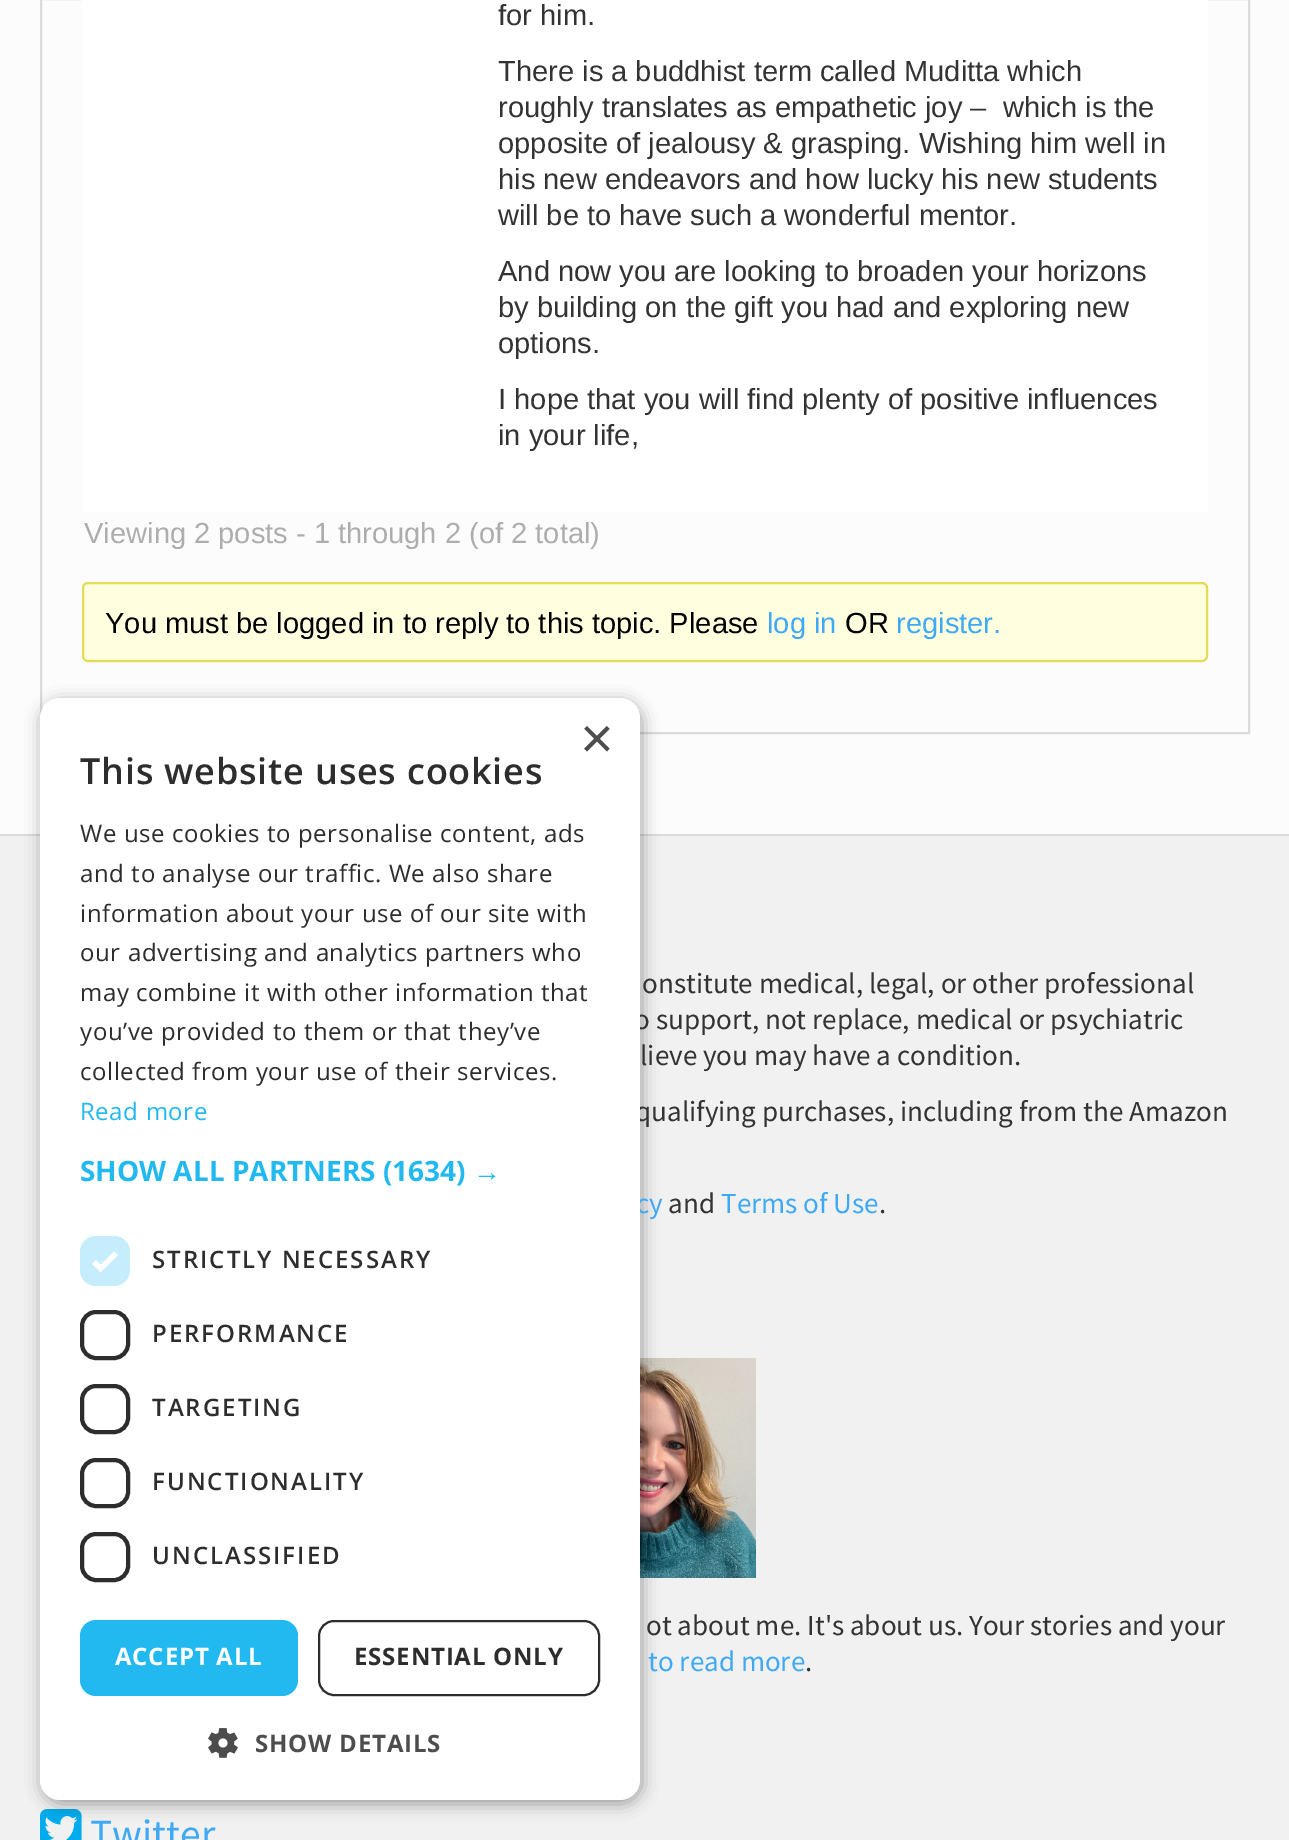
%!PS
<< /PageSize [1289 1840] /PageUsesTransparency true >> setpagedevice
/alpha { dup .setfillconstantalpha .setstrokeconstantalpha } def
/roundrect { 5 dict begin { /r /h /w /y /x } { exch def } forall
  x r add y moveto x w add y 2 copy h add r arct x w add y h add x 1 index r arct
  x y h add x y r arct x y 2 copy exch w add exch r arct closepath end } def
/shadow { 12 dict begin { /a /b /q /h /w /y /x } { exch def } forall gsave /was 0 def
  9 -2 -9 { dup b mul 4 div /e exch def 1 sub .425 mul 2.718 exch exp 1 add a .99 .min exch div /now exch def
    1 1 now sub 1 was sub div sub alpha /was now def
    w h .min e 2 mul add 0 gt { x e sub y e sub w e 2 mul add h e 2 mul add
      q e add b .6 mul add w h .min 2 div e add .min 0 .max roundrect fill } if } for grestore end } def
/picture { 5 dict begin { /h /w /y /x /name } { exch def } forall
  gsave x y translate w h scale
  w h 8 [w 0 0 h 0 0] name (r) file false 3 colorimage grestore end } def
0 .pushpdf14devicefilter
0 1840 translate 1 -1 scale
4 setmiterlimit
0.988 setgray
0 0 1289 1840 rectfill
0.859 setgray
2 setlinewidth
41 -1 1208 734 rectstroke
1 setgray
82 0 1126 512 rectfill
/LiberationSans-Regular [29.1 0 0 -29.1 0 0] selectfont
0.2 setgray
498 25 moveto (for him.) show
498 81 moveto (There is a buddhist term called Muditta which) show
498 117 moveto (roughly translates as empathetic joy –  which is the) show
498 153 moveto (opposite of jealousy & grasping. Wishing him well in) show
498 189 moveto (his new endeavors and how lucky his new students) show
498 225 moveto (will be to have such a wonderful mentor.) show
498 281 moveto (And now you are looking to broaden your horizons) show
498 317 moveto (by building on the gift you had and exploring new) show
498 353 moveto (options.) show
498 409 moveto (I hope that you will find plenty of positive influences) show
498 445 moveto (in your life,) show
0.678 setgray
84 543 moveto (Viewing 2 posts - 1 through 2 \(of 2 total\)) show
1 1 0.878 setrgbcolor
83 583 1124 78 5 roundrect gsave fill grestore
0.902 0.859 0.333 setrgbcolor
stroke
0 setgray
105 633 moveto (You must be logged in to reply to this topic. Please) show
0.247 0.663 0.961 setrgbcolor
767 633 moveto (log in) show
0 setgray
845 633 moveto (OR) show
0.247 0.663 0.961 setrgbcolor
896 633 moveto (register.) show
0.945 setgray
0 836 1289 1004 rectfill
0.859 setgray
0 834 1289 2 rectfill
(img2.rgb) 640 1358 116 220 picture
(img3.rgb) 40 1809 42 31 picture
0 setgray
42 702 600 1102 20 8 0.35 shadow
/SourceSansPro-Regular [29.1 0 0 -29.1 0 0] selectfont
0.2 setgray
634 1029 moveto (o support, not replace, medical or psychiatric) show
635 1121 moveto (qualifying purchases, including from the Amazon) show
0.247 0.663 0.961 setrgbcolor
636 1213 moveto (cy) show
1 setgray
40 698 600 1102 20 roundrect fill
/LiberationSans-Regular [58 0 0 -58 0 0] selectfont
0.302 setgray
580 758 moveto (×) show
/OpenSans-SemiBold [36 0 0 -36 0 0] selectfont
0.176 setgray
80 784 moveto 0.8 0 (This website uses cookies) ashow
/OpenSans-Regular [24 0 0 -24 0 0] selectfont
80 842 moveto 0.6 0 (We use cookies to personalise content, ads) ashow
80 882 moveto 0.6 0 (and to analyse our traffic. We also share) ashow
80 922 moveto 0.6 0 (information about your use of our site with) ashow
80 961 moveto 0.6 0 (our advertising and analytics partners who) ashow
80 1001 moveto 0.6 0 (may combine it with other information that) ashow
80 1040 moveto 0.6 0 (you’ve provided to them or that they’ve) ashow
80 1080 moveto 0.6 0 (collected from your use of their services.) ashow
0.133 0.722 0.941 setrgbcolor
80 1120 moveto 0.6 0 (Read more) ashow
/OpenSans-Bold [28 0 0 -28 0 0] selectfont
80 1181 moveto (SHOW ALL PARTNERS \(1634\)) show
/LiberationSans-Bold [28 0 0 -28 0 0] selectfont
473 1181 moveto (→) show
0.776 0.929 0.984 setrgbcolor
80 1236 50 50 16 roundrect fill
1 setgray
5.2 setlinewidth
newpath 94 1262 moveto 100.5 1268.5 lineto 116 1253.5 lineto stroke
/OpenSans-SemiBold [24 0 0 -24 0 0] selectfont
0.176 setgray
152 1268 moveto 2 0 (STRICTLY NECESSARY) ashow
4 setlinewidth
82 1312 46 46 14 roundrect stroke
152 1342 moveto 2 0 (PERFORMANCE) ashow
82 1386 46 46 14 roundrect stroke
152 1416 moveto 2 0 (TARGETING) ashow
82 1460 46 46 14 roundrect stroke
152 1490 moveto 2 0 (FUNCTIONALITY) ashow
82 1534 46 46 14 roundrect stroke
152 1564 moveto 2 0 (UNCLASSIFIED) ashow
0.133 0.722 0.941 setrgbcolor
80 1620 218 76 16 roundrect fill
/OpenSans-Bold [24 0 0 -24 0 0] selectfont
1 setgray
115 1665 moveto 0.8 0 (ACCEPT ALL) ashow
0.176 setgray
2 setlinewidth
319 1621 280 74 15 roundrect stroke
354 1665 moveto 0.8 0 (ESSENTIAL ONLY) ashow
(img1.rgb) 208 1728 30 30 picture
0.302 setgray
255 1752 moveto 0.8 0 (SHOW DETAILS) ashow
/SourceSansPro-Regular [29.1 0 0 -29.1 0 0] selectfont
0.2 setgray
642 993 moveto (onstitute medical, legal, or other professional) show
640 1065 moveto (lieve you may have a condition.) show
668 1213 moveto (and) show
0.247 0.663 0.961 setrgbcolor
721 1213 moveto (Terms of Use) show
0.2 setgray
879 1213 moveto (.) show
646 1635 moveto (ot about me. It's about us. Your stories and your) show
0.247 0.663 0.961 setrgbcolor
648 1671 moveto (to read more) show
0.2 setgray
805 1671 moveto (.) show
/SourceSansPro-Regular [41.5 0 0 -41.5 0 0] selectfont
0.247 0.663 0.961 setrgbcolor
90 1848 moveto (Twitter) show
.poppdf14devicefilter showpage
